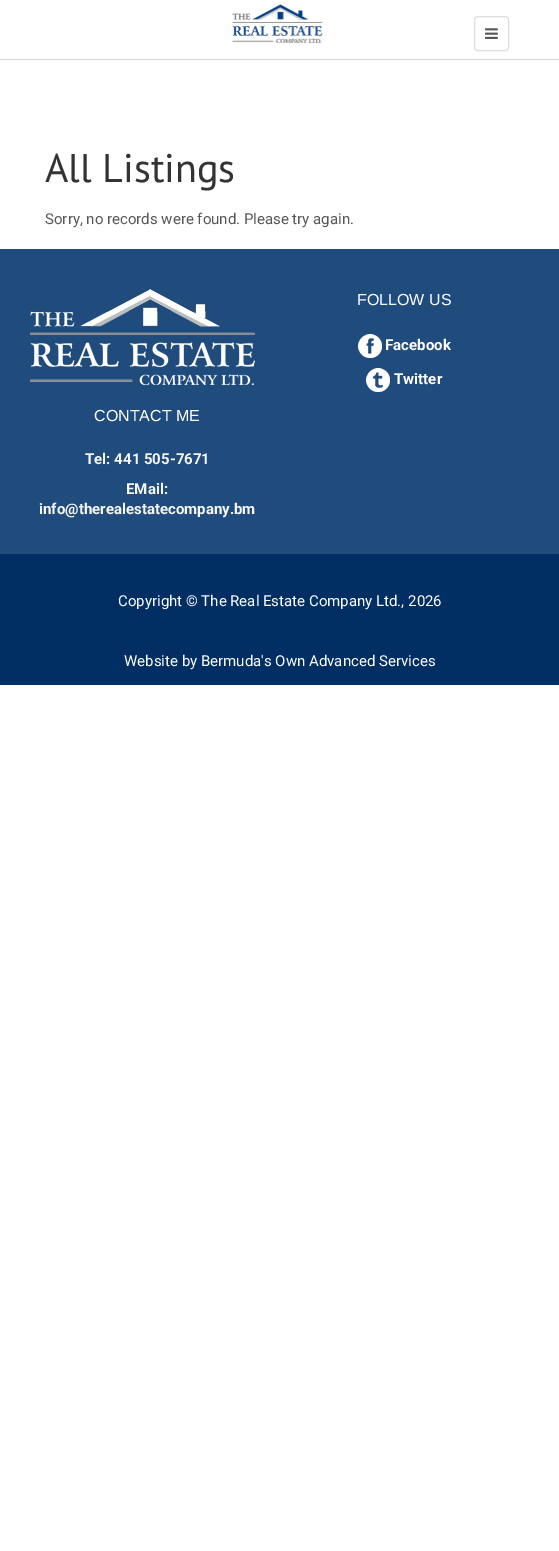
%!PS
<< /PageSize [559 1551] >> setpagedevice
/roundrect { 5 dict begin { /r /h /w /y /x } { exch def } forall
  x r add y moveto x w add y 2 copy h add r arct x w add y h add x 1 index r arct
  x y h add x y r arct x y 2 copy exch w add exch r arct closepath end } def
/picture { 5 dict begin { /h /w /y /x /name } { exch def } forall
  gsave x y translate w h scale
  w h 8 [w 0 0 h 0 0] name (r) file false 3 colorimage grestore end } def
0 1551 translate 1 -1 scale
4 setmiterlimit
1 setgray
0 0 559 1551 rectfill
0.835 setgray
0 59 559 1 rectfill
(img1.rgb) 232 4 91 39 picture
0.867 setgray
474.5 16.5 34 34 3.5 roundrect stroke
(img2.rgb) 485 28 13 11 picture
/PTSans-Regular [40 0 0 -40 0 0] selectfont
0.2 setgray
45 182 moveto (All Listings) show
/Roboto-Regular [15 0 0 -15 0 0] selectfont
0.341 setgray
45 224 moveto (Sorry, no records were found. Please try again.) show
0.125 0.294 0.49 setrgbcolor
0 249 559 305 rectfill
(img3.rgb) 30 289 225 96 picture
/LiberationSans-Regular [16 0 0 -16 0 0] selectfont
1 setgray
357 305 moveto (FOLLOW US) show
(img4.rgb) 358 334 24 24 picture
/Roboto-Bold [15 0 0 -15 0 0] selectfont
385 350 moveto (Facebook) show
(img5.rgb) 366 368 24 24 picture
394 384 moveto (Twitter) show
/LiberationSans-Regular [16 0 0 -16 0 0] selectfont
94 421 moveto (CONTACT ME) show
/Roboto-Bold [15 0 0 -15 0 0] selectfont
0.969 setgray
85 464 moveto (Tel: 441 505-7671) show
126 494 moveto (EMail:) show
39 514 moveto (info@therealestatecompany.bm) show
0.004 0.18 0.388 setrgbcolor
0 554 559 131 rectfill
/Roboto-Regular [15 0 0 -15 0 0] selectfont
1 setgray
118 606 moveto (Copyright © The Real Estate Company Ltd., 2026) show
124 666 moveto (Website by Bermuda's Own Advanced Services) show
showpage
